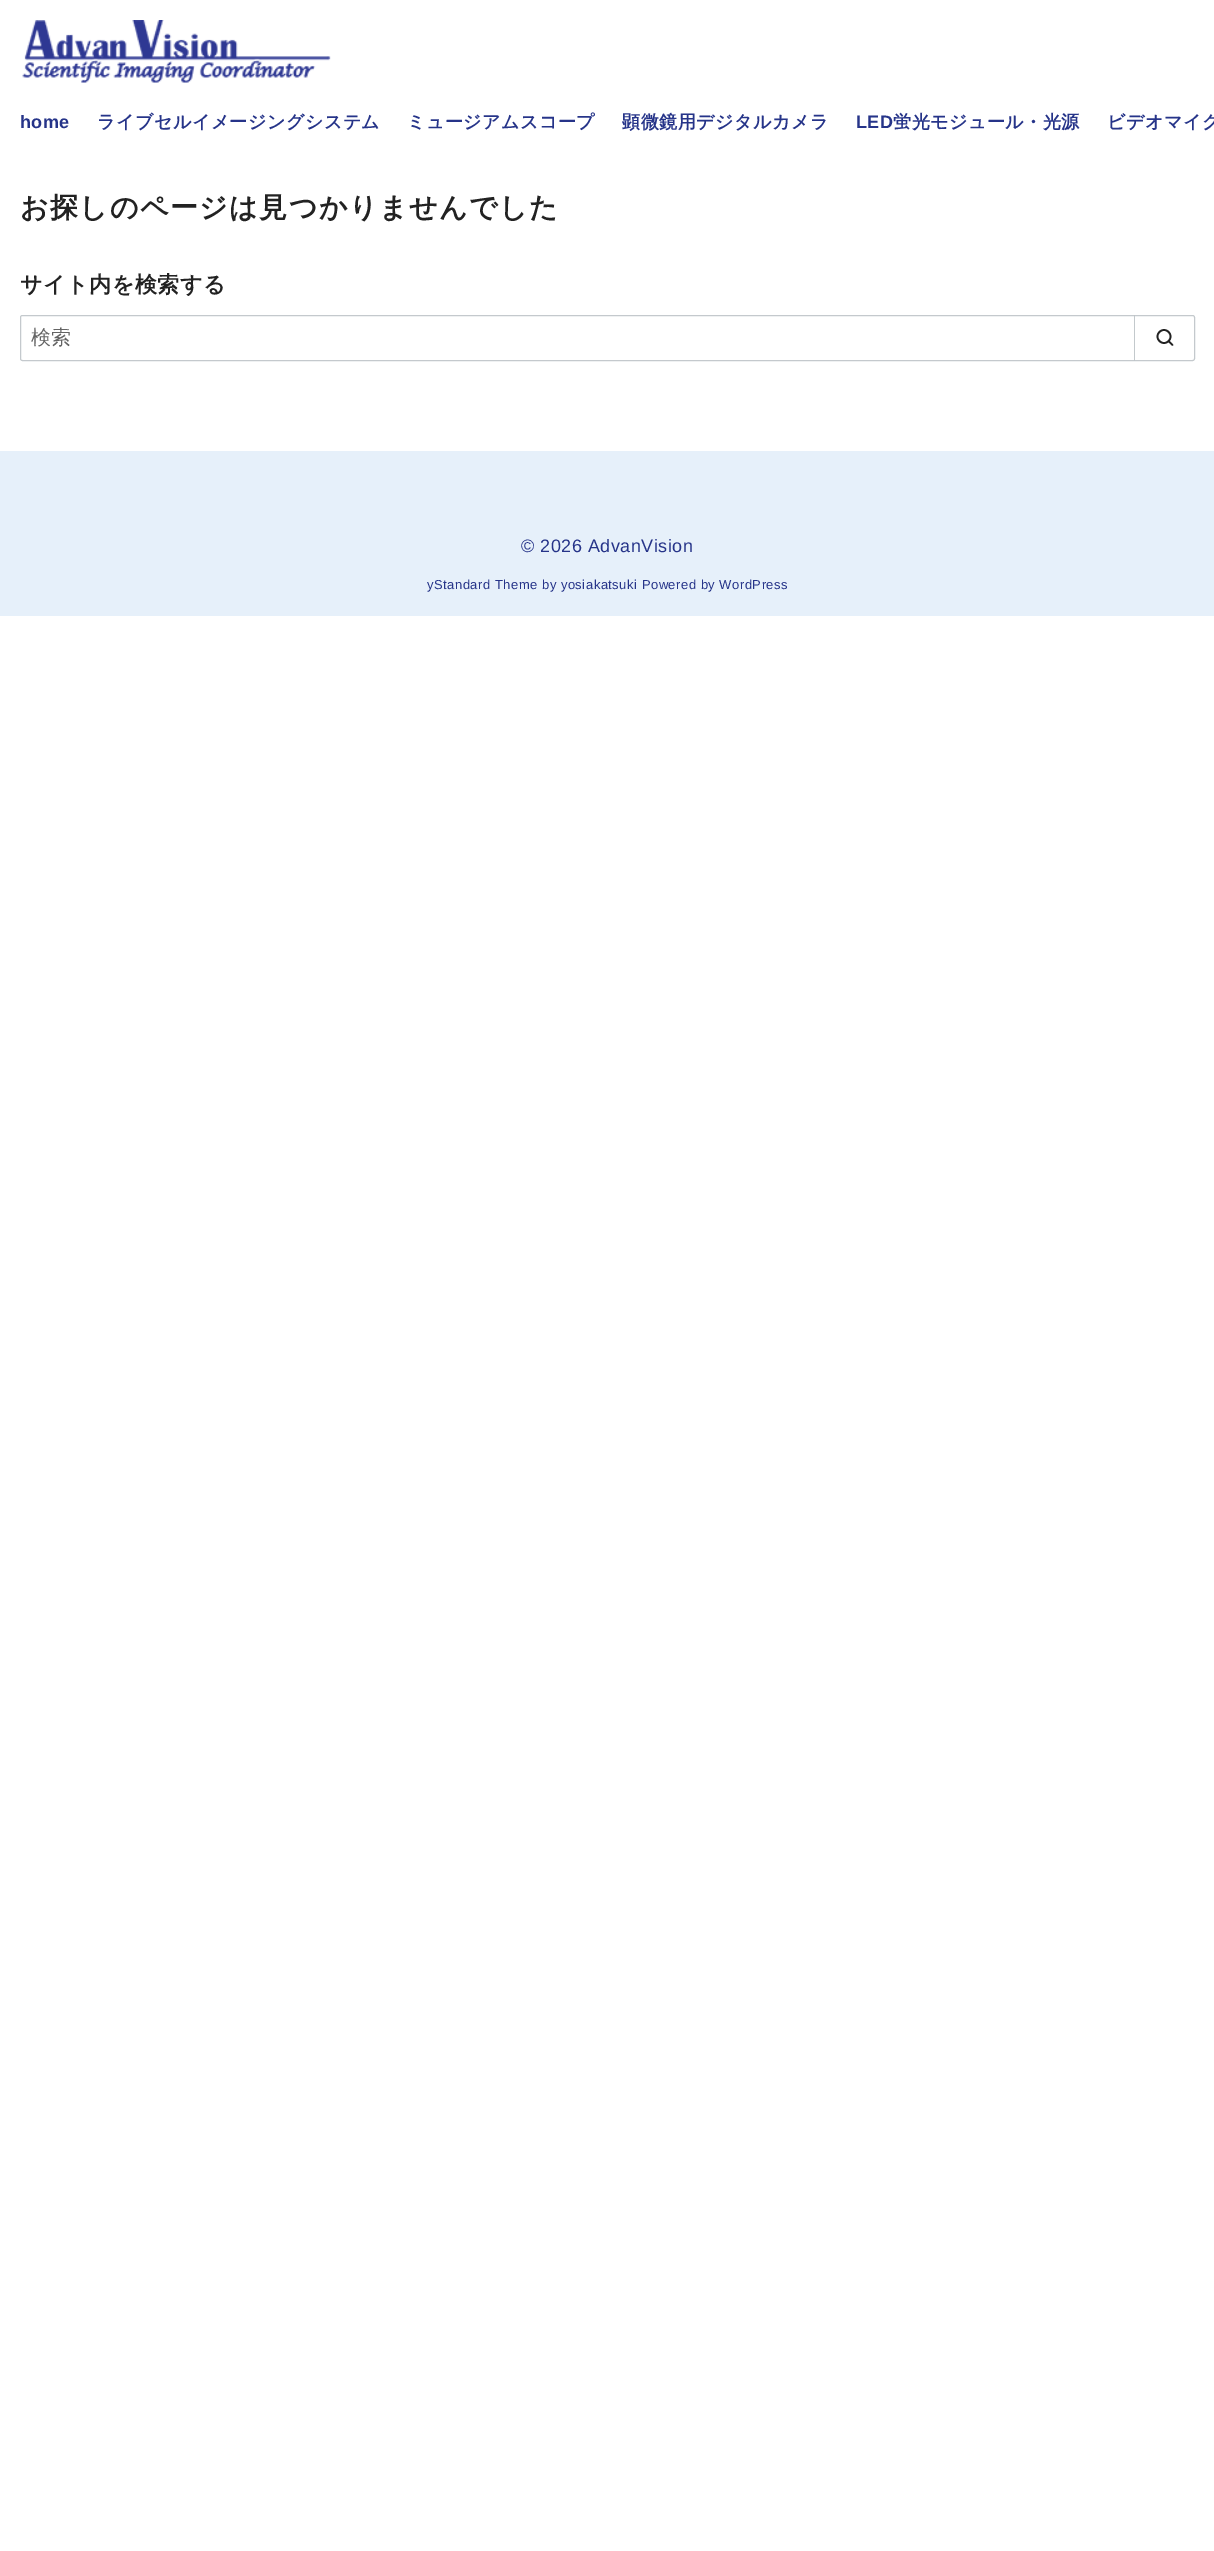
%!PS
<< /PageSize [1214 2551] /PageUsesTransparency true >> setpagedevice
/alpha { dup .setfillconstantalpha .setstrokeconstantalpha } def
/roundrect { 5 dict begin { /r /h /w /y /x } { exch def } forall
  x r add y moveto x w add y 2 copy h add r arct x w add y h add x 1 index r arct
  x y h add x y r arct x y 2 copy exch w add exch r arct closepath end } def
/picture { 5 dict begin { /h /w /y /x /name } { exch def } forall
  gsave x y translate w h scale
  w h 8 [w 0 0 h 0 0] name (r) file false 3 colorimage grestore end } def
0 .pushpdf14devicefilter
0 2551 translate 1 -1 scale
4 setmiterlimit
1 setgray
0 0 1214 2551 rectfill
(img1.rgb) 22 20 309 63 picture
/LiberationSans-Bold [18 0 0 -18 0 0] selectfont
0.149 0.204 0.537 setrgbcolor
20 128 moveto 0.5 0 (home) ashow
/WenQuanYiZenHei-Bold [18 0 0 -18 0 0] selectfont
97 128 moveto 0.5 0 (ライブセルイメージングシステム) ashow
407 128 moveto 0.5 0 (ミュージアムスコープ) ashow
622 128 moveto 0.5 0 (顕微鏡用デジタルカメラ) ashow
/LiberationSans-Bold [18 0 0 -18 0 0] selectfont
856 128 moveto 0.5 0 (LED) ashow
/WenQuanYiZenHei-Bold [18 0 0 -18 0 0] selectfont
893 128 moveto 0.5 0 (蛍光モジュール・光源) ashow
1107 128 moveto 0.5 0 (ビデオマイク) ashow
/WenQuanYiZenHei-Bold [28 0 0 -28 0 0] selectfont
0.133 setgray
20 217 moveto 1.4 0 (お探しのページは見つかりませんでした) ashow
/WenQuanYiZenHei-Bold [22 0 0 -22 0 0] selectfont
20 292 moveto 0.5 0 (サイト内を検索する) ashow
0.769 0.788 0.804 setrgbcolor
20.5 315.5 1174 45 2 roundrect stroke
/WenQuanYiZenHei-Medium [20 0 0 -20 0 0] selectfont
0.392 setgray
31 344 moveto (検索) show
0.9 alpha
0.741 0.765 0.78 setrgbcolor
1134 315 1 46 rectfill
1 alpha
0.133 setgray
1.7 setlinewidth
newpath 1164 336.5 6.5 0 360 arc closepath stroke
1 setlinecap
1 setlinejoin
newpath 1172.5 345 moveto 1169 341.5 lineto stroke
0.902 0.941 0.98 setrgbcolor
0 451 1214 165 rectfill
/LiberationSans-Regular [18 0 0 -18 0 0] selectfont
0.149 0.204 0.537 setrgbcolor
521 552 moveto 0.5 0 (© 2026 AdvanVision) ashow
/LiberationSans-Regular [13 0 0 -13 0 0] selectfont
427 589 moveto 0.5 0 (yStandard Theme by yosiakatsuki Powered by WordPress) ashow
.poppdf14devicefilter showpage
